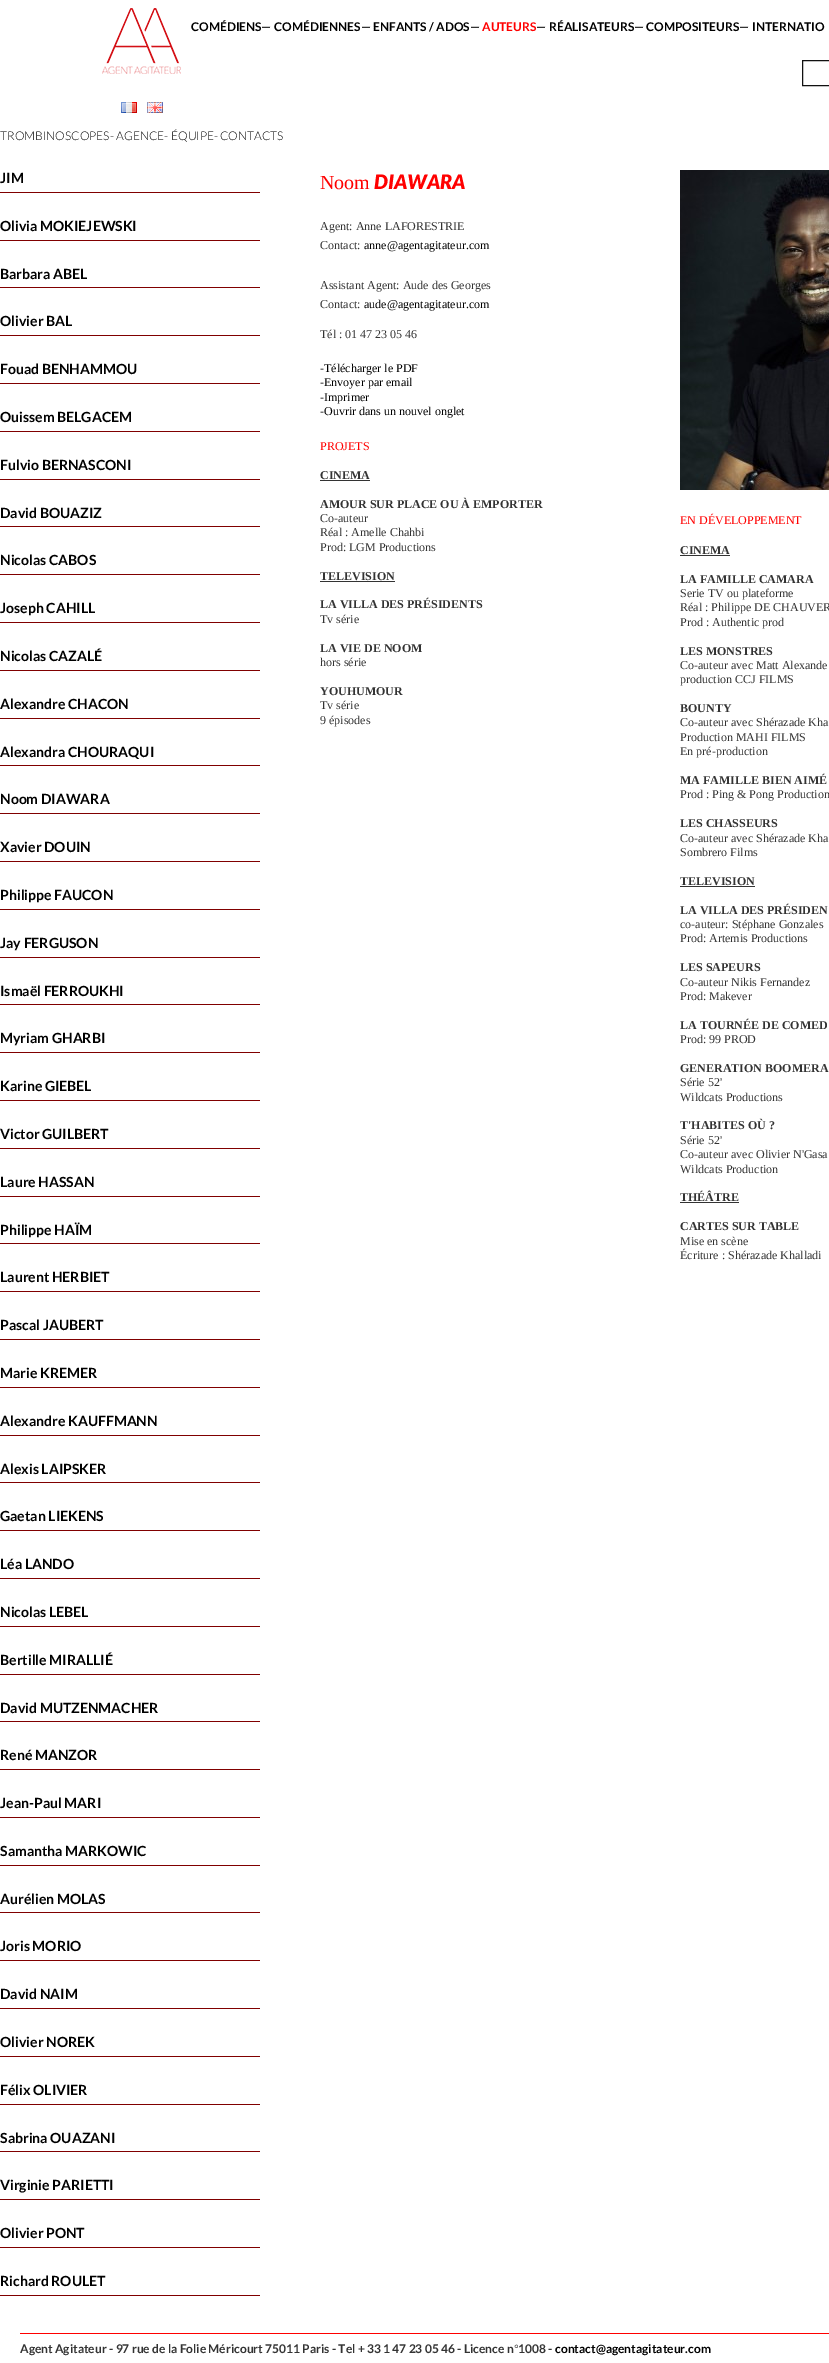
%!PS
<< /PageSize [829 2363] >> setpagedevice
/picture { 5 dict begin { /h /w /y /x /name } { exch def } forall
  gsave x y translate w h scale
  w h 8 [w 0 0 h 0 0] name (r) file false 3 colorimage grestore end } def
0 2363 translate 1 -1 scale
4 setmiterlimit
1 setgray
0 0 829 2363 rectfill
/Lato-Bold [12 0 0 -12 0 0] selectfont
0 setgray
191 31 moveto (COMÉDIENS) show
0.2 setgray
261 31 moveto (—) show
0 setgray
274 31 moveto (COMÉDIENNES) show
0.2 setgray
361 31 moveto (—) show
0 setgray
373 31 moveto (ENFANTS / ADOS) show
0.2 setgray
470 31 moveto (—) show
1 0 0 setrgbcolor
482 31 moveto (AUTEURS) show
0.2 setgray
536 31 moveto (—) show
0 setgray
549 31 moveto (RÉALISATEURS) show
0.2 setgray
634 31 moveto (—) show
0 setgray
646 31 moveto (COMPOSITEURS) show
0.2 setgray
739 31 moveto (—) show
0 setgray
752 31 moveto (INTERNATIO) show
0.067 setgray
802.5 60.5 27 25 rectstroke
(img1.rgb) 102 8 79 66 picture
(img2.rgb) 121 102 16 11 picture
(img3.rgb) 147 102 16 11 picture
/Lato-Light [12 0 0 -12 0 0] selectfont
0 setgray
0 140 moveto (TROMBINOSCOPES) show
0.2 setgray
110 140 moveto (-) show
0 setgray
116 140 moveto (AGENCE) show
0.2 setgray
164 140 moveto (-) show
0 setgray
171 140 moveto (ÉQUIPE) show
0.2 setgray
214 140 moveto (-) show
0 setgray
220 140 moveto (CONTACTS) show
0.502 0 0 setrgbcolor
0 192 260 1 rectfill
/Lato-Bold [14 0 0 -14 0 0] selectfont
0 setgray
0 183 moveto (JIM) show
0.502 0 0 setrgbcolor
0 240 260 1 rectfill
0 setgray
0 231 moveto (Olivia MOKIEJEWSKI) show
0.502 0 0 setrgbcolor
0 287 260 1 rectfill
0 setgray
0 279 moveto (Barbara ABEL) show
0.502 0 0 setrgbcolor
0 335 260 1 rectfill
0 setgray
0 326 moveto (Olivier BAL) show
0.502 0 0 setrgbcolor
0 383 260 1 rectfill
0 setgray
0 374 moveto (Fouad BENHAMMOU) show
0.502 0 0 setrgbcolor
0 431 260 1 rectfill
0 setgray
0 422 moveto (Ouissem BELGACEM) show
0.502 0 0 setrgbcolor
0 479 260 1 rectfill
0 setgray
0 470 moveto (Fulvio BERNASCONI) show
0.502 0 0 setrgbcolor
0 526 260 1 rectfill
0 setgray
0 518 moveto (David BOUAZIZ) show
0.502 0 0 setrgbcolor
0 574 260 1 rectfill
0 setgray
0 565 moveto (Nicolas CABOS) show
0.502 0 0 setrgbcolor
0 622 260 1 rectfill
0 setgray
0 613 moveto (Joseph CAHILL) show
0.502 0 0 setrgbcolor
0 670 260 1 rectfill
0 setgray
0 661 moveto (Nicolas CAZALÉ) show
0.502 0 0 setrgbcolor
0 718 260 1 rectfill
0 setgray
0 709 moveto (Alexandre CHACON) show
0.502 0 0 setrgbcolor
0 765 260 1 rectfill
0 setgray
0 757 moveto (Alexandra CHOURAQUI) show
0.502 0 0 setrgbcolor
0 813 260 1 rectfill
0 setgray
0 804 moveto (Noom DIAWARA) show
0.502 0 0 setrgbcolor
0 861 260 1 rectfill
0 setgray
0 852 moveto (Xavier DOUIN) show
0.502 0 0 setrgbcolor
0 909 260 1 rectfill
0 setgray
0 900 moveto (Philippe FAUCON) show
0.502 0 0 setrgbcolor
0 957 260 1 rectfill
0 setgray
0 948 moveto (Jay FERGUSON) show
0.502 0 0 setrgbcolor
0 1004 260 1 rectfill
0 setgray
0 996 moveto (Ismaël FERROUKHI) show
0.502 0 0 setrgbcolor
0 1052 260 1 rectfill
0 setgray
0 1043 moveto (Myriam GHARBI) show
0.502 0 0 setrgbcolor
0 1100 260 1 rectfill
0 setgray
0 1091 moveto (Karine GIEBEL) show
0.502 0 0 setrgbcolor
0 1148 260 1 rectfill
0 setgray
0 1139 moveto (Victor GUILBERT) show
0.502 0 0 setrgbcolor
0 1196 260 1 rectfill
0 setgray
0 1187 moveto (Laure HASSAN) show
0.502 0 0 setrgbcolor
0 1243 260 1 rectfill
0 setgray
0 1235 moveto (Philippe HAÏM) show
0.502 0 0 setrgbcolor
0 1291 260 1 rectfill
0 setgray
0 1282 moveto (Laurent HERBIET) show
0.502 0 0 setrgbcolor
0 1339 260 1 rectfill
0 setgray
0 1330 moveto (Pascal JAUBERT) show
0.502 0 0 setrgbcolor
0 1387 260 1 rectfill
0 setgray
0 1378 moveto (Marie KREMER) show
0.502 0 0 setrgbcolor
0 1435 260 1 rectfill
0 setgray
0 1426 moveto (Alexandre KAUFFMANN) show
0.502 0 0 setrgbcolor
0 1482 260 1 rectfill
0 setgray
0 1474 moveto (Alexis LAIPSKER) show
0.502 0 0 setrgbcolor
0 1530 260 1 rectfill
0 setgray
0 1521 moveto (Gaetan LIEKENS) show
0.502 0 0 setrgbcolor
0 1578 260 1 rectfill
0 setgray
0 1569 moveto (Léa LANDO) show
0.502 0 0 setrgbcolor
0 1626 260 1 rectfill
0 setgray
0 1617 moveto (Nicolas LEBEL) show
0.502 0 0 setrgbcolor
0 1674 260 1 rectfill
0 setgray
0 1665 moveto (Bertille MIRALLIÉ) show
0.502 0 0 setrgbcolor
0 1721 260 1 rectfill
0 setgray
0 1713 moveto (David MUTZENMACHER) show
0.502 0 0 setrgbcolor
0 1769 260 1 rectfill
0 setgray
0 1760 moveto (René MANZOR) show
0.502 0 0 setrgbcolor
0 1817 260 1 rectfill
0 setgray
0 1808 moveto (Jean-Paul MARI) show
0.502 0 0 setrgbcolor
0 1865 260 1 rectfill
0 setgray
0 1856 moveto (Samantha MARKOWIC) show
0.502 0 0 setrgbcolor
0 1912 260 1 rectfill
0 setgray
0 1904 moveto (Aurélien MOLAS) show
0.502 0 0 setrgbcolor
0 1960 260 1 rectfill
0 setgray
0 1951 moveto (Joris MORIO) show
0.502 0 0 setrgbcolor
0 2008 260 1 rectfill
0 setgray
0 1999 moveto (David NAIM) show
0.502 0 0 setrgbcolor
0 2056 260 1 rectfill
0 setgray
0 2047 moveto (Olivier NOREK) show
0.502 0 0 setrgbcolor
0 2104 260 1 rectfill
0 setgray
0 2095 moveto (Félix OLIVIER) show
0.502 0 0 setrgbcolor
0 2151 260 1 rectfill
0 setgray
0 2143 moveto (Sabrina OUAZANI) show
0.502 0 0 setrgbcolor
0 2199 260 1 rectfill
0 setgray
0 2190 moveto (Virginie PARIETTI) show
0.502 0 0 setrgbcolor
0 2247 260 1 rectfill
0 setgray
0 2238 moveto (Olivier PONT) show
0.502 0 0 setrgbcolor
0 2295 260 1 rectfill
0 setgray
0 2286 moveto (Richard ROULET) show
/LiberationSerif-Regular [20 0 0 -20 0 0] selectfont
1 0 0 setrgbcolor
320 189 moveto (Noom) show
/Lato-BlackItalic [20 0 0 -20 0 0] selectfont
374 189 moveto (DIAWARA) show
/LiberationSerif-Regular [12 0 0 -12 0 0] selectfont
0.2 setgray
320 230 moveto (Agent: Anne LAFORESTRIE) show
320 249 moveto (Contact:) show
0 setgray
364 249 moveto (anne@agentagitateur.com) show
0.2 setgray
320 289 moveto (Assistant Agent: Aude des Georges) show
320 308 moveto (Contact:) show
0 setgray
364 308 moveto (aude@agentagitateur.com) show
0.2 setgray
320 338 moveto (Tél : 01 47 23 05 46) show
0 setgray
320 372 moveto (-Télécharger le PDF) show
320 386 moveto (-Envoyer par email) show
320 401 moveto (-Imprimer) show
320 415 moveto (-Ouvrir dans un nouvel onglet) show
1 0 0 setrgbcolor
320 450 moveto (PROJETS) show
/LiberationSerif-Bold [12 0 0 -12 0 0] selectfont
0.2 setgray
320 479 moveto (CINEMA) show
320 480 50 1 rectfill
320 508 moveto (AMOUR SUR PLACE OU À EMPORTER) show
/LiberationSerif-Regular [12 0 0 -12 0 0] selectfont
320 522 moveto (Co-auteur) show
320 536 moveto (Réal : Amelle Chahbi) show
320 551 moveto (Prod: LGM Productions) show
/LiberationSerif-Bold [12 0 0 -12 0 0] selectfont
320 580 moveto (TELEVISION) show
320 581 75 1 rectfill
320 608 moveto (LA VILLA DES PRÉSIDENTS) show
/LiberationSerif-Regular [12 0 0 -12 0 0] selectfont
320 623 moveto (Tv série) show
/LiberationSerif-Bold [12 0 0 -12 0 0] selectfont
320 652 moveto (LA VIE DE NOOM) show
/LiberationSerif-Regular [12 0 0 -12 0 0] selectfont
320 666 moveto (hors série) show
/LiberationSerif-Bold [12 0 0 -12 0 0] selectfont
320 695 moveto (YOUHUMOUR) show
/LiberationSerif-Regular [12 0 0 -12 0 0] selectfont
320 709 moveto (Tv série) show
320 724 moveto (9 épisodes) show
(img4.rgb) 680 170 149 320 picture
1 0 0 setrgbcolor
680 524 moveto (EN DÉVELOPPEMENT) show
/LiberationSerif-Bold [12 0 0 -12 0 0] selectfont
0.2 setgray
680 554 moveto (CINEMA) show
680 555 50 1 rectfill
680 583 moveto (LA FAMILLE CAMARA) show
/LiberationSerif-Regular [12 0 0 -12 0 0] selectfont
680 597 moveto (Serie TV ou plateforme) show
680 611 moveto (Réal : Philippe DE CHAUVER) show
680 626 moveto (Prod : Authentic prod) show
/LiberationSerif-Bold [12 0 0 -12 0 0] selectfont
680 655 moveto (LES MONSTRES) show
/LiberationSerif-Regular [12 0 0 -12 0 0] selectfont
680 669 moveto (Co-auteur avec Matt Alexande) show
680 683 moveto (production CCJ FILMS) show
/LiberationSerif-Bold [12 0 0 -12 0 0] selectfont
680 712 moveto (BOUNTY) show
/LiberationSerif-Regular [12 0 0 -12 0 0] selectfont
680 726 moveto (Co-auteur avec Shérazade Kha) show
680 741 moveto (Production MAHI FILMS) show
680 755 moveto (En pré-production) show
/LiberationSerif-Bold [12 0 0 -12 0 0] selectfont
680 784 moveto (MA FAMILLE BIEN AIMÉ) show
/LiberationSerif-Regular [12 0 0 -12 0 0] selectfont
680 798 moveto (Prod : Ping & Pong Production) show
/LiberationSerif-Bold [12 0 0 -12 0 0] selectfont
680 827 moveto (LES CHASSEURS) show
/LiberationSerif-Regular [12 0 0 -12 0 0] selectfont
680 842 moveto (Co-auteur avec Shérazade Kha) show
680 856 moveto (Sombrero Films) show
/LiberationSerif-Bold [12 0 0 -12 0 0] selectfont
680 885 moveto (TELEVISION) show
680 886 75 1 rectfill
680 914 moveto (LA VILLA DES PRÉSIDEN) show
/LiberationSerif-Regular [12 0 0 -12 0 0] selectfont
680 928 moveto (co-auteur: Stéphane Gonzales) show
680 942 moveto (Prod: Artemis Productions) show
/LiberationSerif-Bold [12 0 0 -12 0 0] selectfont
680 971 moveto (LES SAPEURS) show
/LiberationSerif-Regular [12 0 0 -12 0 0] selectfont
680 986 moveto (Co-auteur Nikis Fernandez) show
680 1000 moveto (Prod: Makever) show
/LiberationSerif-Bold [12 0 0 -12 0 0] selectfont
680 1029 moveto (LA TOURNÉE DE COMED) show
/LiberationSerif-Regular [12 0 0 -12 0 0] selectfont
680 1043 moveto (Prod: 99 PROD) show
/LiberationSerif-Bold [12 0 0 -12 0 0] selectfont
680 1072 moveto (GENERATION BOOMERA) show
/LiberationSerif-Regular [12 0 0 -12 0 0] selectfont
680 1086 moveto (Série 52') show
680 1101 moveto (Wildcats Productions) show
/LiberationSerif-Bold [12 0 0 -12 0 0] selectfont
680 1129 moveto (T'HABITES OÙ ?) show
/LiberationSerif-Regular [12 0 0 -12 0 0] selectfont
680 1144 moveto (Série 52') show
680 1158 moveto (Co-auteur avec Olivier N'Gasa) show
680 1173 moveto (Wildcats Production) show
/LiberationSerif-Bold [12 0 0 -12 0 0] selectfont
680 1201 moveto (THÉÂTRE) show
680 1202 59 1 rectfill
680 1230 moveto (CARTES SUR TABLE) show
/LiberationSerif-Regular [12 0 0 -12 0 0] selectfont
680 1245 moveto (Mise en scène) show
680 1259 moveto (Écriture : Shérazade Khalladi) show
1 0 0 setrgbcolor
20 2333 809 1 rectfill
/Lato-Bold [12 0 0 -12 0 0] selectfont
0.2 setgray
20 2353 moveto (Agent Agitateur - 97 rue de la Folie Méricourt 75011 Paris - Tel + 33 1 47 23 05 46 - Licence n) show
/LiberationSans-Regular [12 0 0 -12 0 0] selectfont
514 2353 moveto (°) show
/Lato-Bold [12 0 0 -12 0 0] selectfont
518 2353 moveto (1008 -) show
0 setgray
555 2353 moveto (contact@agentagitateur.com) show
showpage
